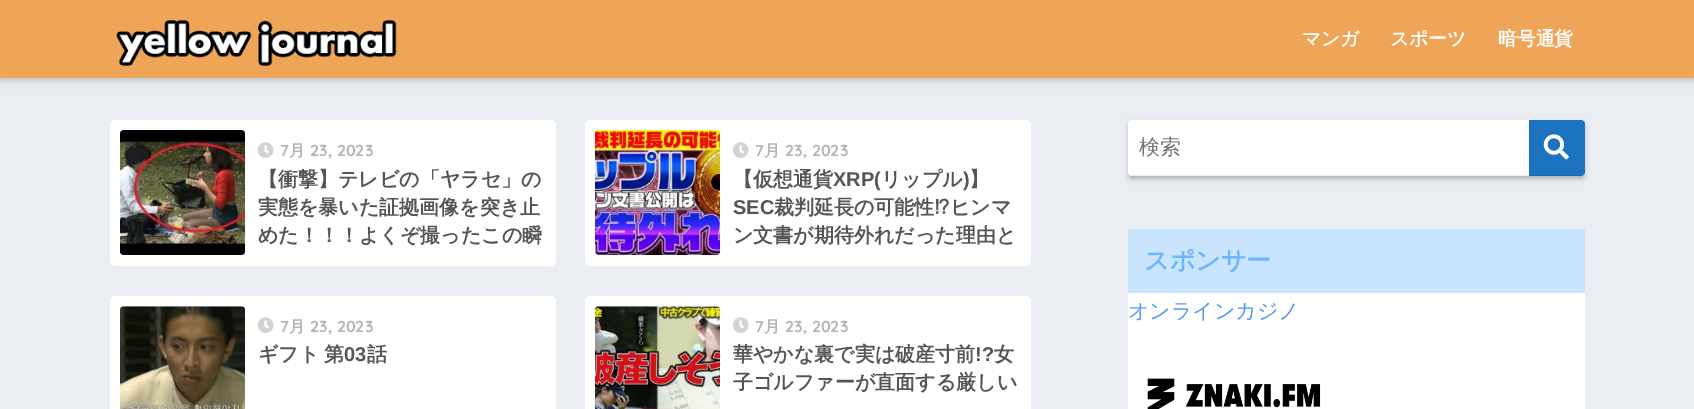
%!PS
<< /PageSize [1694 409] /PageUsesTransparency true >> setpagedevice
/alpha { dup .setfillconstantalpha .setstrokeconstantalpha } def
/roundrect { 5 dict begin { /r /h /w /y /x } { exch def } forall
  x r add y moveto x w add y 2 copy h add r arct x w add y h add x 1 index r arct
  x y h add x y r arct x y 2 copy exch w add exch r arct closepath end } def
/shadow { 12 dict begin { /a /b /q /h /w /y /x } { exch def } forall gsave /was 0 def
  9 -2 -9 { dup b mul 4 div /e exch def 1 sub .425 mul 2.718 exch exp 1 add a .99 .min exch div /now exch def
    1 1 now sub 1 was sub div sub alpha /was now def
    w h .min e 2 mul add 0 gt { x e sub y e sub w e 2 mul add h e 2 mul add
      q e add b .6 mul add w h .min 2 div e add .min 0 .max roundrect fill } if } for grestore end } def
/picture { 5 dict begin { /h /w /y /x /name } { exch def } forall
  gsave x y translate w h scale
  w h 8 [w 0 0 h 0 0] name (r) file false 3 colorimage grestore end } def
0 .pushpdf14devicefilter
0 409 translate 1 -1 scale
4 setmiterlimit
0.918 0.929 0.949 setrgbcolor
0 0 1694 409 rectfill
0 setgray
0 4 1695 77 0 4 0.18 shadow
0.937 0.647 0.345 setrgbcolor
0 0 1694 78 rectfill
(img1.rgb) 116 20 281 46 picture
/WenQuanYiZenHei-Bold [18.75 0 0 -18.75 0 0] selectfont
1 setgray
1302 45 moveto (マンガ) show
1390 45 moveto (スポーツ) show
1498 45 moveto (暗号通貨) show
110 120 446 146 6 roundrect fill
(img2.rgb) 120 130 125 125 picture
(img3.rgb) 257 142 17 16 picture
/Quicksand-Bold [16 0 0 -16 0 0] selectfont
0.71 setgray
280 156 moveto (7) show
/WenQuanYiZenHei-Bold [16 0 0 -16 0 0] selectfont
289 156 moveto (月) show
/Quicksand-Bold [16 0 0 -16 0 0] selectfont
310 156 moveto (23, 2023) show
/WenQuanYiZenHei-Bold [20 0 0 -20 0 0] selectfont
0.333 setgray
258 186 moveto (【衝撃】テレビの「ヤラセ」の) show
258 214 moveto (実態を暴いた証拠画像を突き止) show
258 242 moveto (めた！！！よくぞ撮ったこの瞬) show
1 setgray
585 120 446 146 6 roundrect fill
(img4.rgb) 595 130 125 125 picture
(img3.rgb) 732 142 17 16 picture
/Quicksand-Bold [16 0 0 -16 0 0] selectfont
0.71 setgray
755 156 moveto (7) show
/WenQuanYiZenHei-Bold [16 0 0 -16 0 0] selectfont
764 156 moveto (月) show
/Quicksand-Bold [16 0 0 -16 0 0] selectfont
785 156 moveto (23, 2023) show
/WenQuanYiZenHei-Bold [20 0 0 -20 0 0] selectfont
0.333 setgray
733 186 moveto (【仮想通貨) show
/LiberationSans-Bold [20 0 0 -20 0 0] selectfont
833 186 moveto (XRP\() show
/WenQuanYiZenHei-Bold [20 0 0 -20 0 0] selectfont
881 186 moveto (リップル) show
/LiberationSans-Bold [20 0 0 -20 0 0] selectfont
963 186 moveto (\)) show
/WenQuanYiZenHei-Bold [20 0 0 -20 0 0] selectfont
969 186 moveto (】) show
/LiberationSans-Bold [20 0 0 -20 0 0] selectfont
733 214 moveto (SEC) show
/WenQuanYiZenHei-Bold [20 0 0 -20 0 0] selectfont
774 214 moveto (裁判延長の可能性) show
/IPAPGothic-Bold [20 0 0 -20 0 0] selectfont
934 214 moveto (⁉) show
/WenQuanYiZenHei-Bold [20 0 0 -20 0 0] selectfont
950 214 moveto (ヒンマ) show
733 242 moveto (ン文書が期待外れだった理由と) show
1 setgray
110 296 446 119 6 roundrect fill
(img5.rgb) 120 306 125 103 picture
(img3.rgb) 257 317 17 16 picture
/Quicksand-Bold [16 0 0 -16 0 0] selectfont
0.71 setgray
280 332 moveto (7) show
/WenQuanYiZenHei-Bold [16 0 0 -16 0 0] selectfont
289 332 moveto (月) show
/Quicksand-Bold [16 0 0 -16 0 0] selectfont
310 332 moveto (23, 2023) show
/WenQuanYiZenHei-Bold [20 0 0 -20 0 0] selectfont
0.333 setgray
258 361 moveto (ギフト) show
324 361 moveto (第) show
/LiberationSans-Bold [20 0 0 -20 0 0] selectfont
344 361 moveto (03) show
/WenQuanYiZenHei-Bold [20 0 0 -20 0 0] selectfont
367 361 moveto (話) show
1 setgray
585 296 446 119 6 roundrect fill
(img6.rgb) 595 306 125 103 picture
(img3.rgb) 732 317 17 16 picture
/Quicksand-Bold [16 0 0 -16 0 0] selectfont
0.71 setgray
755 332 moveto (7) show
/WenQuanYiZenHei-Bold [16 0 0 -16 0 0] selectfont
764 332 moveto (月) show
/Quicksand-Bold [16 0 0 -16 0 0] selectfont
785 332 moveto (23, 2023) show
/WenQuanYiZenHei-Bold [20 0 0 -20 0 0] selectfont
0.333 setgray
733 361 moveto (華やかな裏で実は破産寸前) show
/LiberationSans-Bold [20 0 0 -20 0 0] selectfont
975 361 moveto (!?) show
/WenQuanYiZenHei-Bold [20 0 0 -20 0 0] selectfont
994 361 moveto (女) show
733 389 moveto (子ゴルファーが直面する厳しい) show
0 setgray
1130 126 453 52 1 2 0.15 shadow
1128 123 457 56 4 3 0.15 shadow
1 setgray
1128 120 457 56 4 roundrect fill
0.937 setgray
1130 175 454 1 rectfill
/WenQuanYiZenHei-Medium [21 0 0 -21 0 0] selectfont
0.459 setgray
1139 154 moveto (検索) show
0.118 0.451 0.745 setrgbcolor
newpath 1529 120 moveto 1581 120 lineto 1583 120 1585 122 1585 124 curveto 1585 172 lineto 1585 174 1583 176 1581 176 curveto 1529 176 lineto closepath fill
0.1 alpha
0 setgray
1529 175 55 1 rectfill
1 alpha
(img7.rgb) 1543 134 26 26 picture
1 setgray
1128 293 457 116 rectfill
0.784 0.894 1 setrgbcolor
1128 229 457 64 rectfill
/WenQuanYiZenHei-Bold [25 0 0 -25 0 0] selectfont
0.42 0.714 1 setrgbcolor
1144 269 moveto (スポンサー) show
/WenQuanYiZenHei-Medium [21 0 0 -21 0 0] selectfont
0.31 0.588 0.965 setrgbcolor
1128 318 moveto (オンラインカジノ) show
(img8.rgb) 1147 378 174 31 picture
.poppdf14devicefilter showpage
